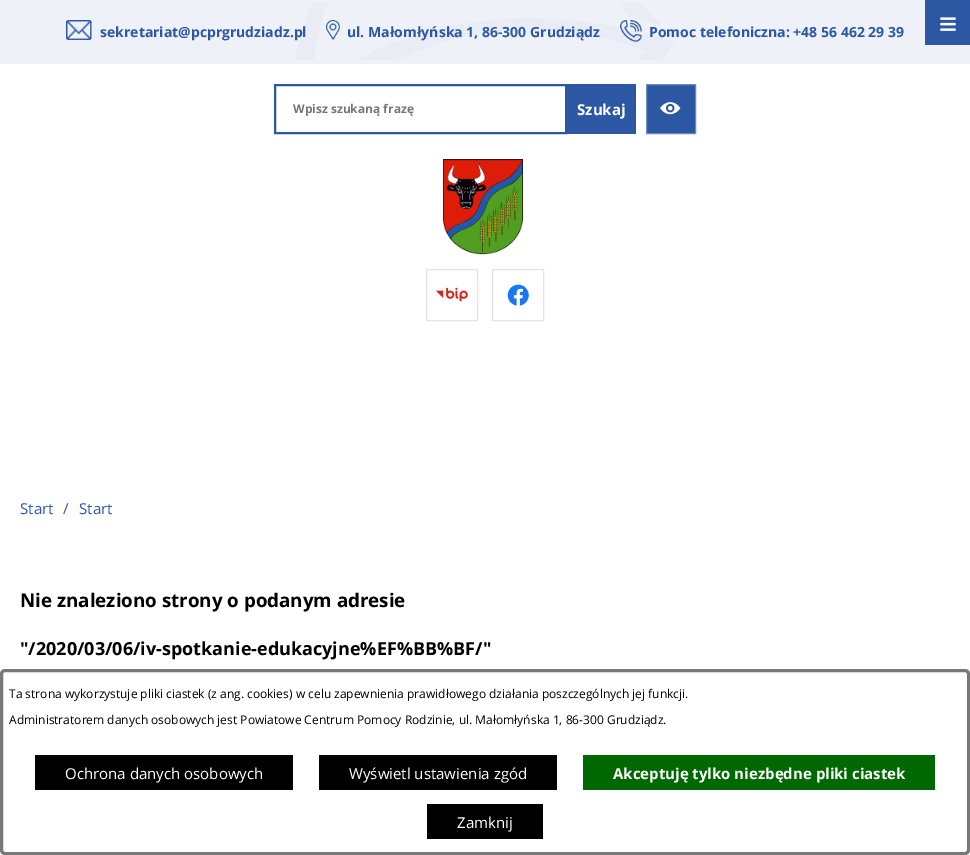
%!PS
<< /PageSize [970 855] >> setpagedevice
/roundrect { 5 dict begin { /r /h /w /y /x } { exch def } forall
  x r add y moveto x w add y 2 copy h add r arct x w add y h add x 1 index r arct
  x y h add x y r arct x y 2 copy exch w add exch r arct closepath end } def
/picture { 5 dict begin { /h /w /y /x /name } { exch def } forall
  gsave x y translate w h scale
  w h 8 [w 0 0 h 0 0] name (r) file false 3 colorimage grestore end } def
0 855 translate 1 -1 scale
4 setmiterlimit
1 setgray
0 0 970 855 rectfill
0.933 0.949 0.973 setrgbcolor
0 0 950 64 rectfill
0.918 0.925 0.961 setrgbcolor
newpath 661 60 moveto 639 60 lineto 645 51 lineto 582 25 513 24 447 41 curveto 436 44 426 48 415 52 curveto 396 60 lineto 356 60 lineto 457 7 570 9 675 42 curveto closepath 314 60 moveto 295 60 lineto 299 40 304 21 313 3 curveto 328 3 lineto 321 20 316 39 314 60 curveto closepath 662 26 moveto 630 17 lineto 620 3 lineto 641 3 lineto closepath fill
(img1.rgb) 66 20 26 20 picture
/OpenSans-Bold [14 0 0 -14 0 0] selectfont
0.173 0.345 0.639 setrgbcolor
100 37 moveto (sekretariat@pcprgrudziadz.pl) show
(img2.rgb) 326 20 14 20 picture
347 37 moveto (ul. Małomłyńska 1, 86-300 Grudziądz) show
(img3.rgb) 620 20 22 22 picture
649 37 moveto (Pomoc telefoniczna: +48 56 462 29 39) show
0.933 0.949 0.973 setrgbcolor
950 45 20 19 rectfill
0.173 0.345 0.639 setrgbcolor
2 setlinewidth
275 85 291 48 rectstroke
/OpenSans-Bold [12 0 0 -12 0 0] selectfont
0.459 setgray
293 113 moveto (Wpisz szukaną frazę) show
0.173 0.345 0.639 setrgbcolor
567 84 69 50 rectfill
/OpenSans-Bold [15 0 0 -15 0 0] selectfont
1 setgray
577 115 moveto (Szukaj) show
0.173 0.345 0.639 setrgbcolor
newpath 646.5 84.5 moveto 695.5 84.5 lineto 695.5 133.5 lineto 646.5 133.5 lineto closepath gsave fill grestore
0.42 0.541 0.749 setrgbcolor
1 setlinewidth
stroke
(img4.rgb) 660 102 21 13 picture
(img5.rgb) 443 159 80 96 picture
0.894 setgray
426.5 269.5 51 51 rectstroke
(img6.rgb) 435 287 33 15 picture
492.5 269.5 51 51 rectstroke
(img7.rgb) 507 284 22 22 picture
0.173 0.345 0.639 setrgbcolor
925 0 45 45 rectfill
(img8.rgb) 940 17 16 14 picture
/OpenSans-Regular [15 0 0 -15 0 0] selectfont
20 514 moveto (Start) show
63 514 moveto (/) show
79 514 moveto (Start) show
/OpenSans-Bold [18.75 0 0 -18.75 0 0] selectfont
0 setgray
20 607 moveto (Nie znaleziono strony o podanym adresie) show
/OpenSans-Bold [18 0 0 -18 0 0] selectfont
20 655 moveto ("/2020/03/06/iv-spotkanie-edukacyjne%EF%BB%BF/") show
0.471 setgray
3 setlinewidth
1.5 670.5 967 183 3.5 roundrect stroke
/OpenSans-Regular [12 0 0 -12 0 0] selectfont
0 setgray
9 698 moveto (Ta strona wykorzystuje pliki ciastek \(z ang. cookies\) w celu zapewnienia prawidłowego działania poszczególnych jej funkcji.) show
9 724 moveto (Administratorem danych osobowych jest Powiatowe Centrum Pomocy Rodzinie, ul. Małomłyńska 1, 86-300 Grudziądz.) show
35 755 258 35 rectfill
/OpenSans-Regular [15 0 0 -15 0 0] selectfont
1 setgray
65 779 moveto (Ochrona danych osobowych) show
0 setgray
319 755 238 35 rectfill
1 setgray
349 779 moveto (Wyświetl ustawienia zgód) show
0 0.408 0 setrgbcolor
583 755 352 35 rectfill
/OpenSans-Bold [15 0 0 -15 0 0] selectfont
1 setgray
613 779 moveto (Akceptuję tylko niezbędne pliki ciastek) show
0 setgray
427 804 116 35 rectfill
/OpenSans-Regular [15 0 0 -15 0 0] selectfont
1 setgray
457 828 moveto (Zamknij) show
showpage
